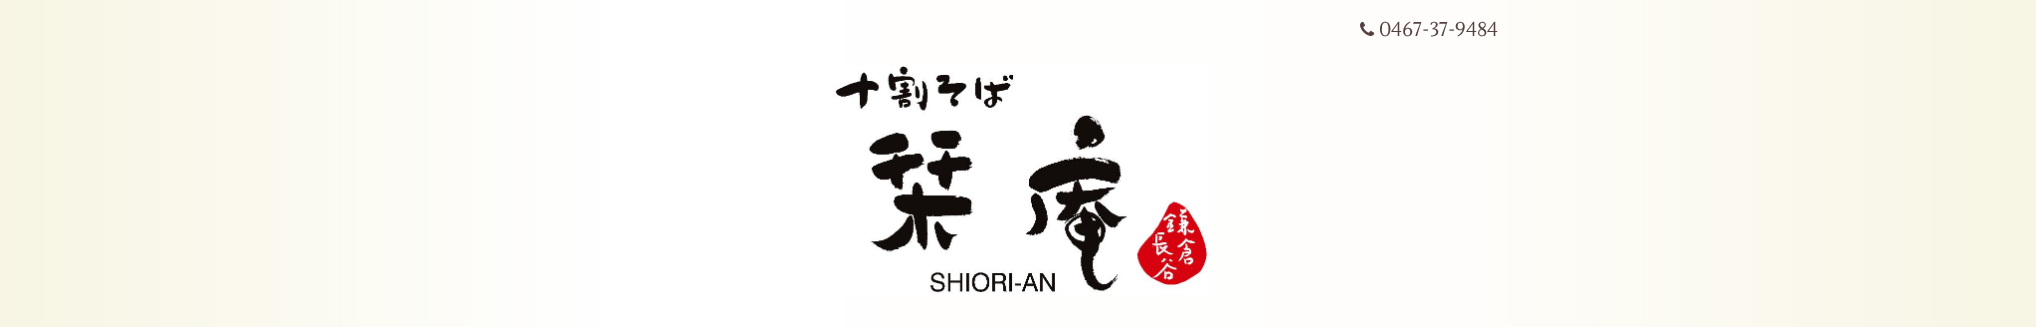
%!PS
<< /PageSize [2036 327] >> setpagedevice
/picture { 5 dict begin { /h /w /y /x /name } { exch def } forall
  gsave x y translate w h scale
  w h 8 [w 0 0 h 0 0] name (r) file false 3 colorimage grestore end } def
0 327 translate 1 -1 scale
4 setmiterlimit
1 setgray
0 0 2036 327 rectfill
(img1.rgb) 0 0 2036 327 picture
(img2.rgb) 1360 21 15 15 picture
/Lustria-Regular [20 0 0 -20 0 0] selectfont
0.337 0.255 0.255 setrgbcolor
1379 36 moveto (0467-37-9484) show
(img3.rgb) 834 66 375 228 picture
showpage
